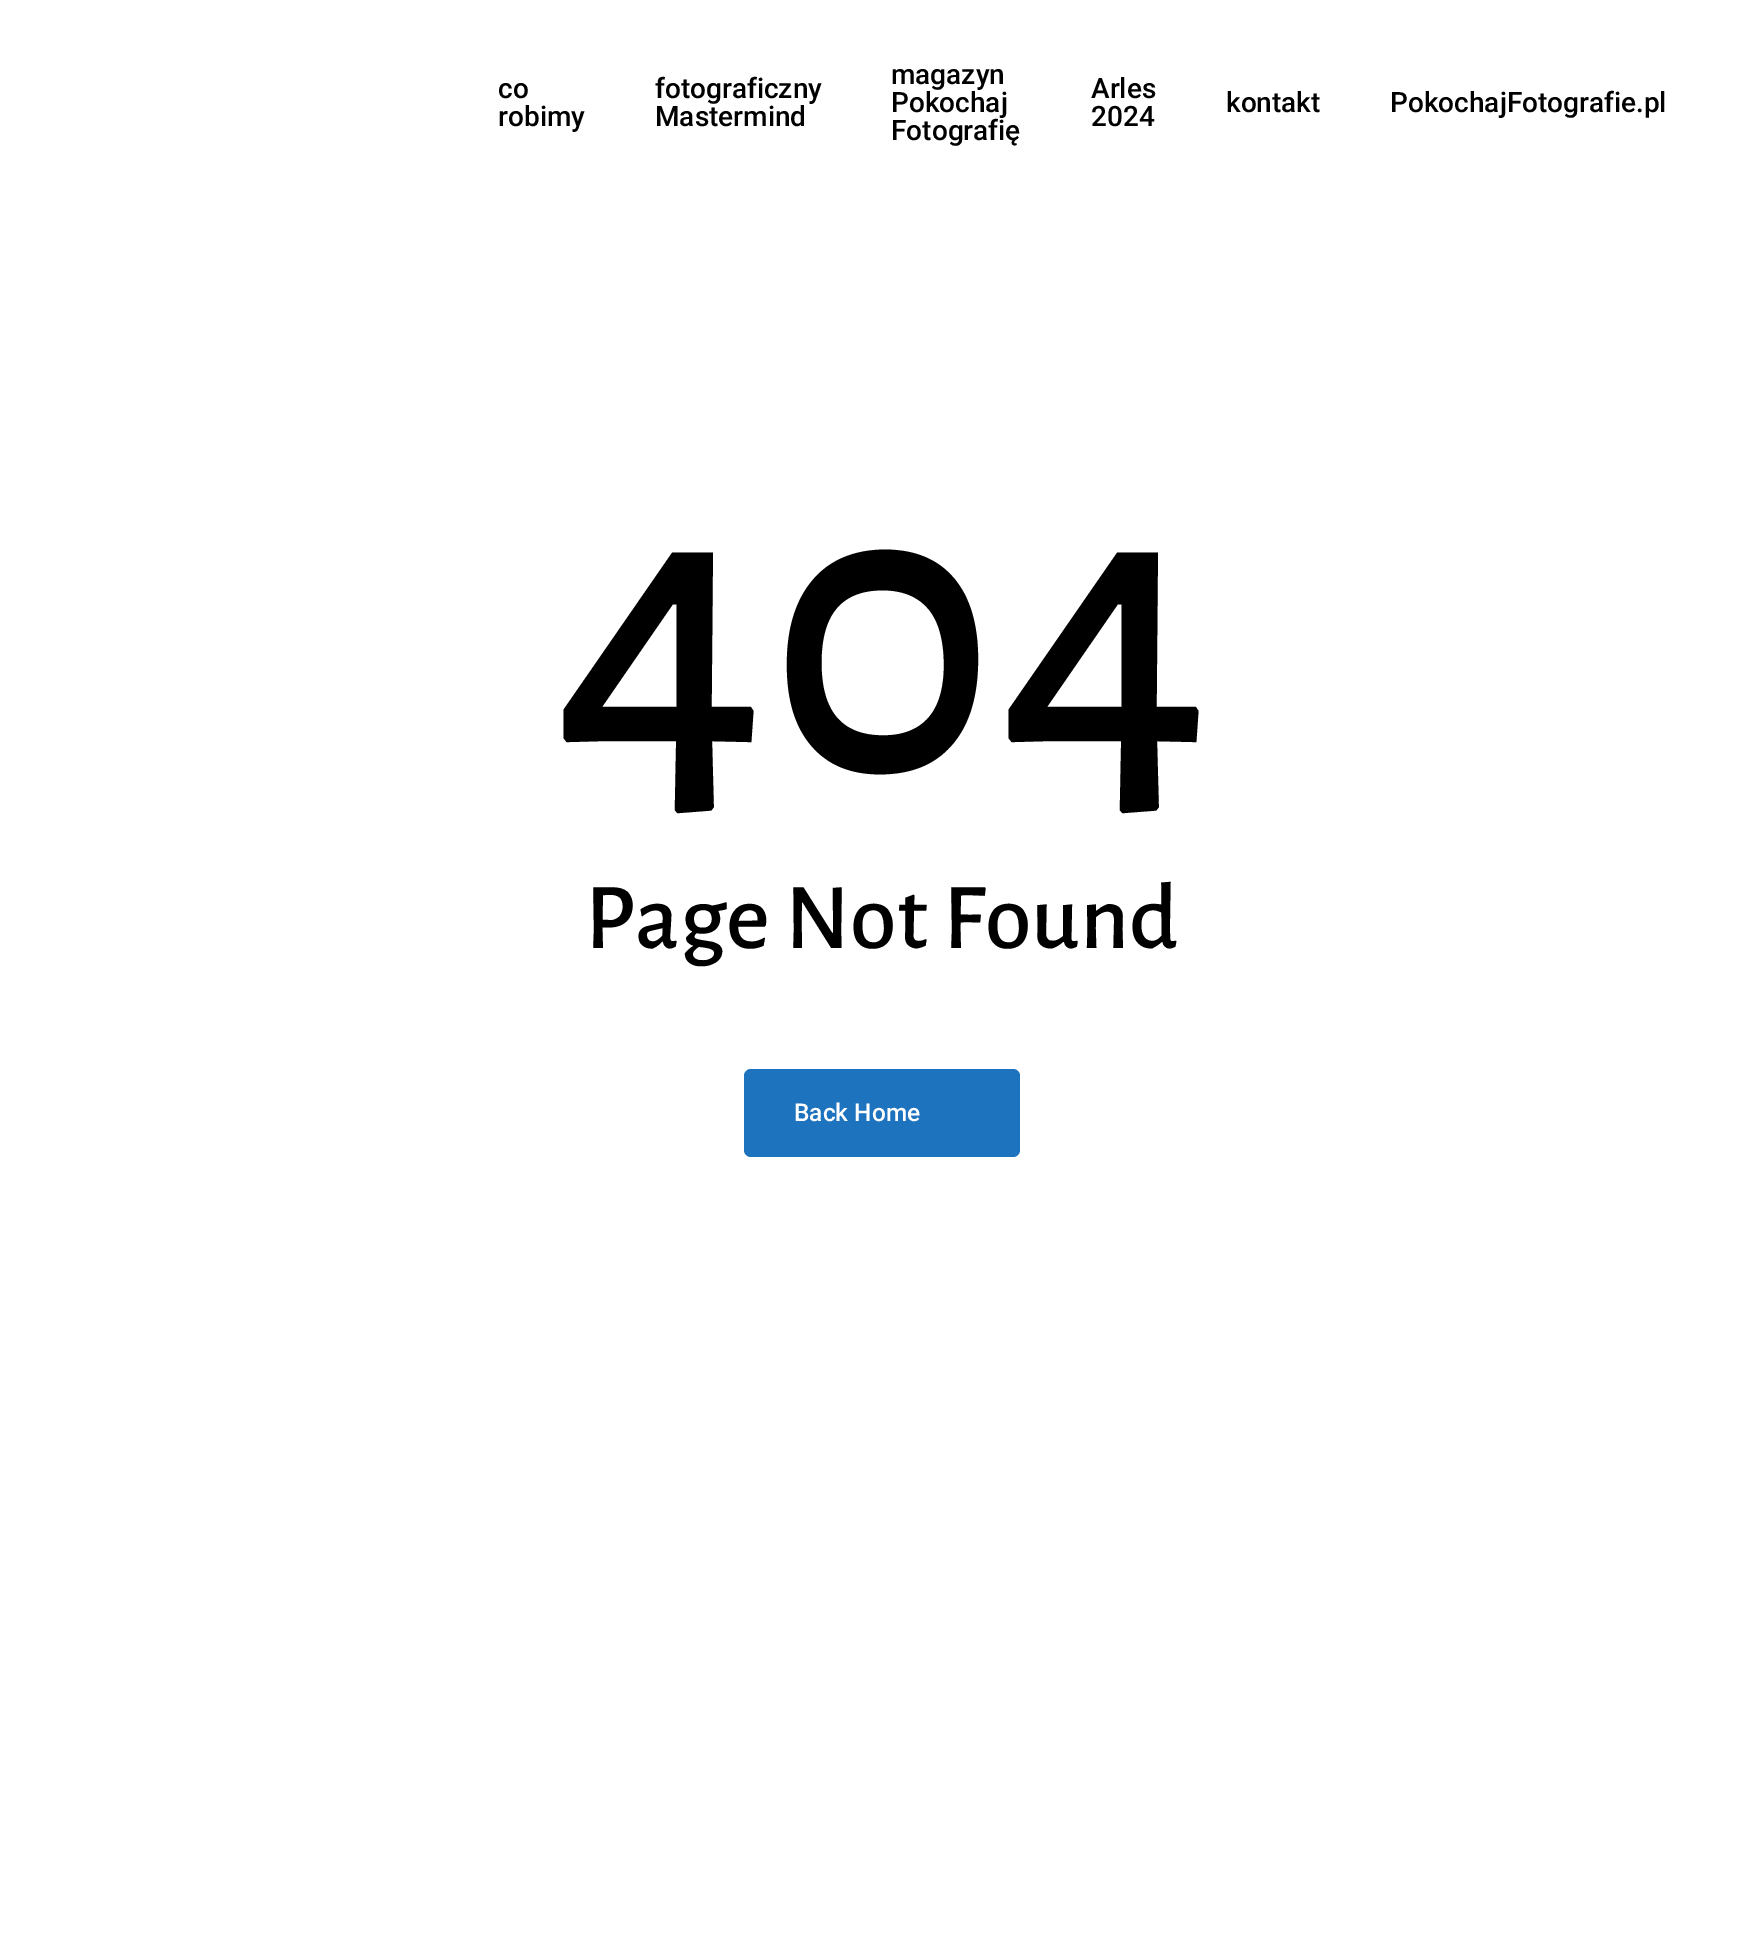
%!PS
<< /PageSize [1764 1948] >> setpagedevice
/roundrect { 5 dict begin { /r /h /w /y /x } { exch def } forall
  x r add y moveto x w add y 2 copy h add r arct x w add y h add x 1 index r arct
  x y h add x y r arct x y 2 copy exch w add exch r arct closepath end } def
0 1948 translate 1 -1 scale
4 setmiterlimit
1 setgray
0 0 1764 1948 rectfill
/Roboto-Medium [28 0 0 -28 0 0] selectfont
0 setgray
498 98 moveto (co) show
498 126 moveto (robimy) show
655 98 moveto (fotograficzny) show
655 126 moveto (Mastermind) show
891 84 moveto (magazyn) show
891 112 moveto (Pokochaj) show
891 140 moveto (Fotografię) show
1091 98 moveto (Arles) show
1091 126 moveto (2024) show
1226 112 moveto (kontakt) show
1390 112 moveto (PokochajFotografie.pl) show
/AlegreyaSans-Medium [438 0 0 -438 0 0] selectfont
553 771 moveto (404) show
/AlegreyaSans-Medium [94.5 0 0 -94.5 0 0] selectfont
585 948 moveto (Page Not Found) show
0.118 0.451 0.745 setrgbcolor
744 1069 276 88 7 roundrect fill
/Roboto-Medium [24.5 0 0 -24.5 0 0] selectfont
1 setgray
794 1121 moveto (Back Home) show
showpage
